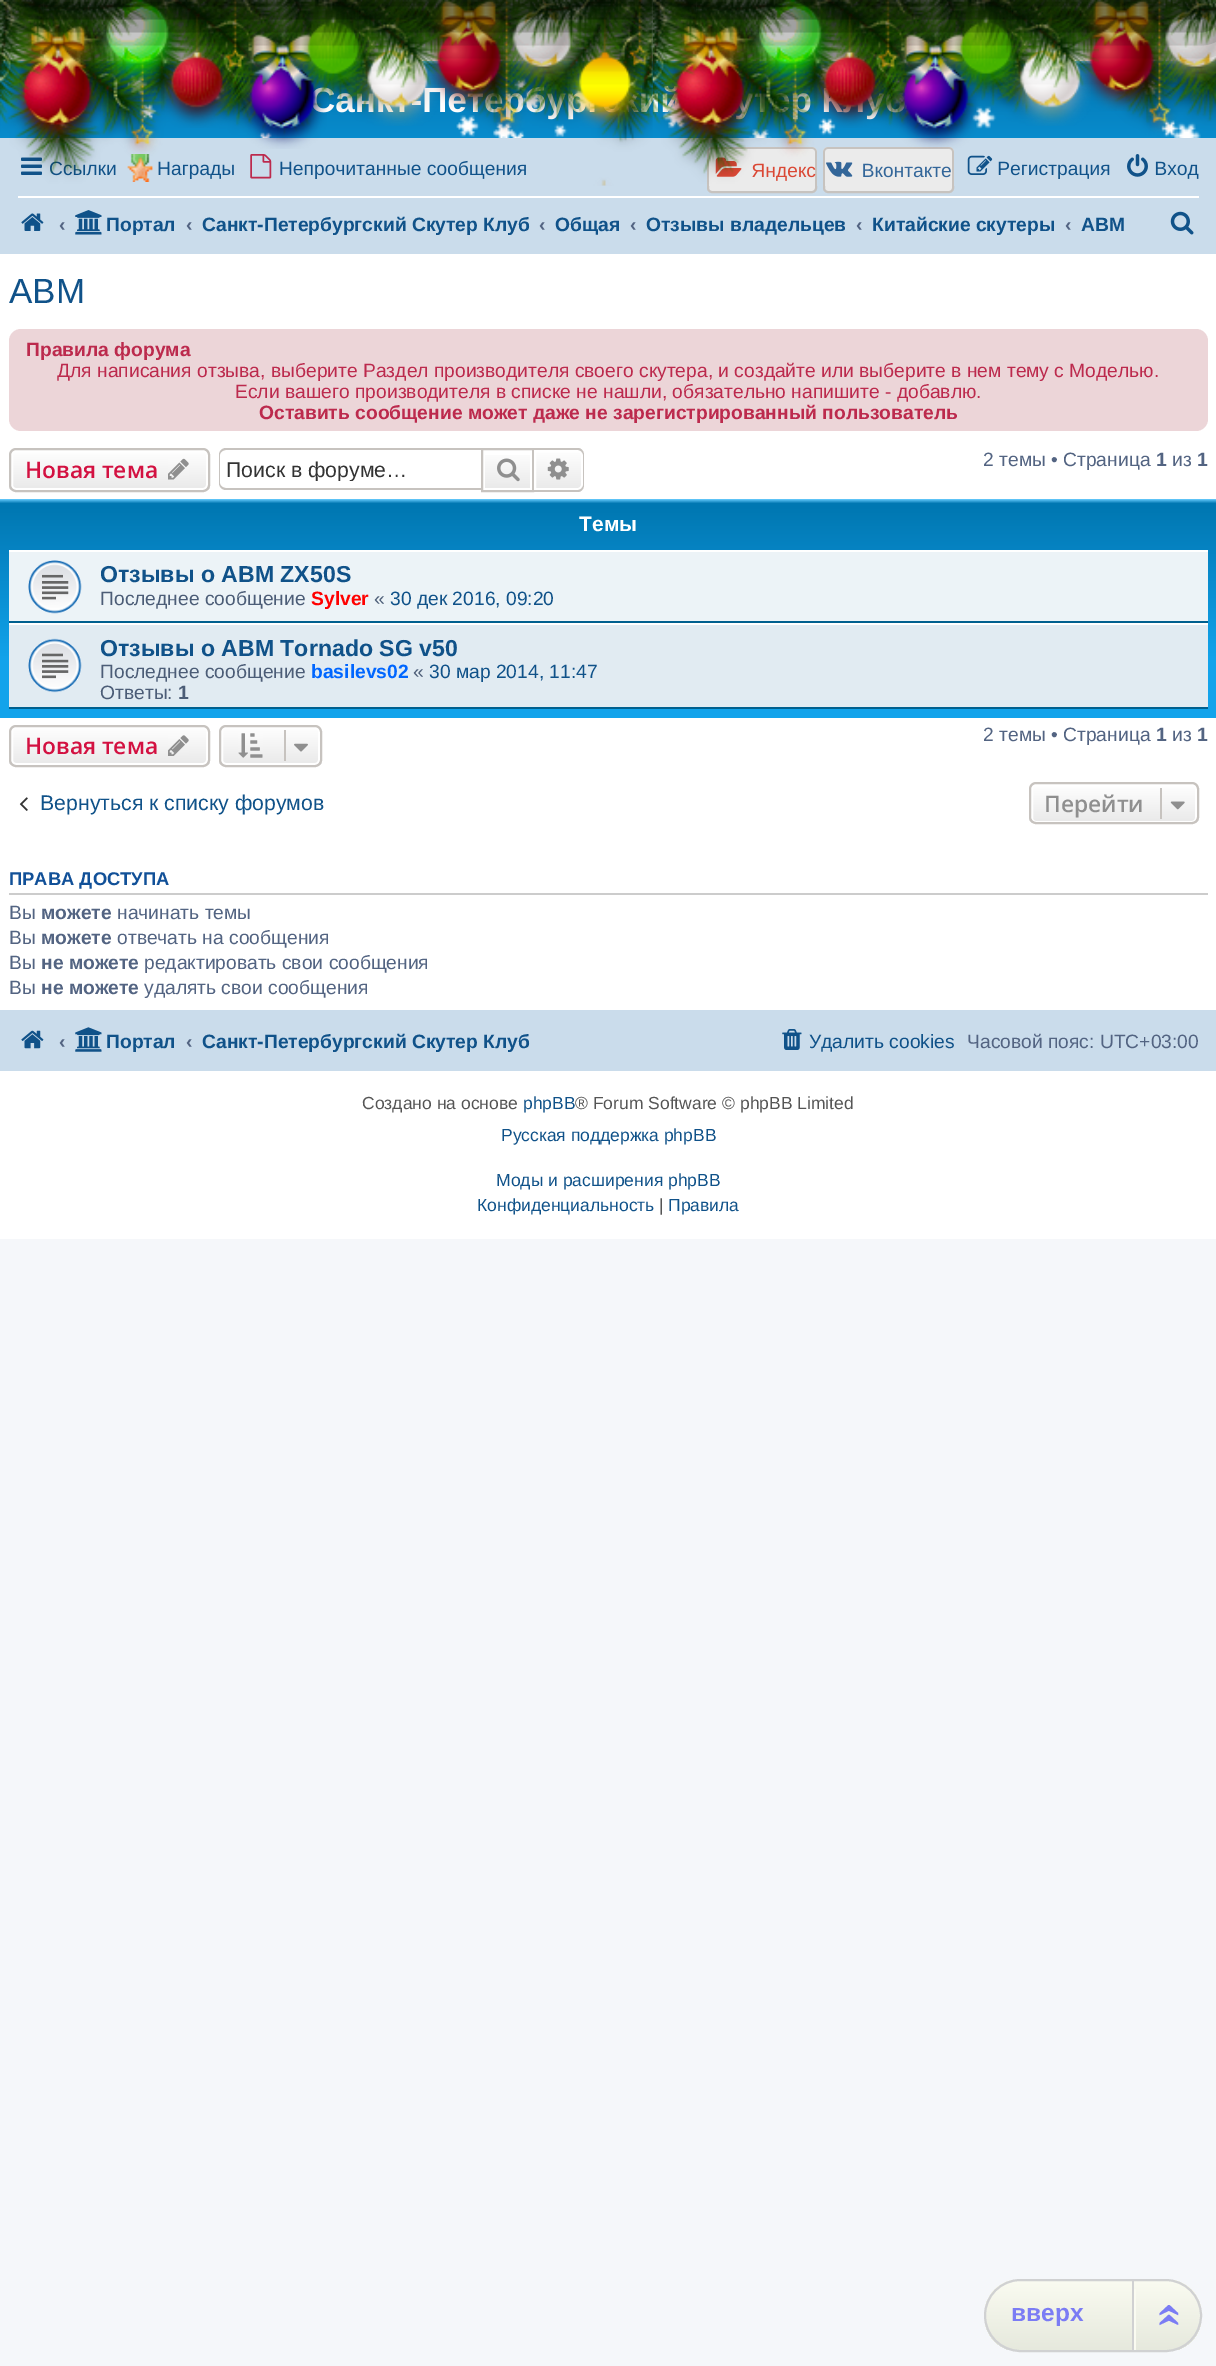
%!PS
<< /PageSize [1216 2366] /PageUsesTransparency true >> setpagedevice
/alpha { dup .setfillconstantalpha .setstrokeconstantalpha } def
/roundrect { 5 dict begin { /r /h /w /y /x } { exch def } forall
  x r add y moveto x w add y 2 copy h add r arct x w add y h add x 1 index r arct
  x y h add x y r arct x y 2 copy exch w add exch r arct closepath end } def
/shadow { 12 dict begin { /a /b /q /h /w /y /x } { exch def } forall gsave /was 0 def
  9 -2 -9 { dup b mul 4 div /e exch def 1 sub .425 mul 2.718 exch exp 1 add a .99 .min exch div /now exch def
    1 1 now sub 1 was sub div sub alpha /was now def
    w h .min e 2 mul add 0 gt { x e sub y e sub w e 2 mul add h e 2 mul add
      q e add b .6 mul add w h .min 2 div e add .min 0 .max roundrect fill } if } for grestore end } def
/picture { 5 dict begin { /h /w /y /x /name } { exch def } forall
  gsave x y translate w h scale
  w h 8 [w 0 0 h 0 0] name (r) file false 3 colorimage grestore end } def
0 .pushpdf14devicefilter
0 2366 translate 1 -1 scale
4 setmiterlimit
0.961 0.969 0.98 setrgbcolor
0 0 1216 2366 rectfill
gsave newpath 0 61 moveto 1216 61 lineto 1216 138 lineto 0 138 lineto closepath clip newpath
<< /ShadingType 2 /ColorSpace /DeviceRGB /Coords [608 61 608 222] /Extend [true true] /Function << /FunctionType 3 /Domain [0 1] /Functions [<< /FunctionType 2 /Domain [0 1] /C0 [0.416 0.808 1] /C1 [0 0.463 0.694] /N 1 >> << /FunctionType 2 /Domain [0 1] /C0 [0 0.463 0.694] /C1 [0.071 0.639 0.922] /N 1 >>] /Bounds [0.02] /Encode [0 1 0 1] >> >> shfill grestore
/LiberationSans-Bold [35 0 0 -35 0 0] selectfont
1 setgray
335 112 moveto (а) show
422 112 moveto (Пе) show
(img30.rgb) 127 61 1074 77 picture
0.792 0.863 0.922 setrgbcolor
0 138 1216 116 rectfill
(img31.rgb) 21 157 21 18 picture
/LiberationSans-Regular [19.25 0 0 -19.25 0 0] selectfont
0.063 0.322 0.537 setrgbcolor
49 175 moveto (Ссылки) show
(img32.rgb) 127 154 26 28 picture
157 175 moveto (Награды) show
(img33.rgb) 250 154 22 25 picture
279 175 moveto (Непрочитанные сообщения) show
0.922 setgray
708 148 108 44 4 roundrect gsave fill grestore
0.78 0.765 0.749 setrgbcolor
2 setlinewidth
stroke
(img34.rgb) 715 157 27 20 picture
0.855 0.282 0.208 setrgbcolor
751 177 moveto (Яндекс) show
0.922 setgray
824 148 129 44 4 roundrect gsave fill grestore
0.78 0.765 0.749 setrgbcolor
stroke
(img35.rgb) 826 161 27 16 picture
0.2 0.4 0.6 setrgbcolor
862 177 moveto (Вконтакте) show
(img36.rgb) 967 155 26 20 picture
0.063 0.322 0.537 setrgbcolor
997 175 moveto (Регистрация) show
(img37.rgb) 1127 154 21 23 picture
1154 175 moveto (Вход) show
(img1.rgb) 0 0 1216 186 picture
(img3.rgb) 11 0 90 143 picture
(img2.rgb) 0 0 44 124 picture
(img5.rgb) 95 0 84 83 picture
(img4.rgb) 43 0 107 47 picture
(img6.rgb) 240 0 87 149 picture
(img7.rgb) 297 0 72 94 picture
(img13.rgb) 357 10 81 116 picture
(img8.rgb) 309 0 50 53 picture
(img10.rgb) 426 0 85 111 picture
(img9.rgb) 358 0 89 88 picture
(img11.rgb) 503 0 80 86 picture
(img12.rgb) 161 16 71 112 picture
(img16.rgb) 568 17 74 111 picture
(img14.rgb) 506 0 137 49 picture
(img15.rgb) 642 0 11 121 picture
(img18.rgb) 664 0 90 143 picture
(img17.rgb) 652 0 45 124 picture
(img20.rgb) 747 0 85 83 picture
(img19.rgb) 696 0 107 47 picture
(img21.rgb) 893 0 87 149 picture
(img22.rgb) 949 0 73 93 picture
(img28.rgb) 1010 10 81 116 picture
(img23.rgb) 962 0 50 53 picture
(img25.rgb) 1079 0 84 111 picture
(img24.rgb) 1011 0 88 88 picture
(img26.rgb) 1155 0 61 86 picture
(img27.rgb) 814 16 71 112 picture
(img29.rgb) 1158 0 58 48 picture
0 setgray
0 -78 1216 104 0 26 0.75 shadow
1 setgray
0 254 1216 985 rectfill
18 196 1181 2 rectfill
(img38.rgb) 21 213 23 18 picture
/LiberationSans-Bold [19.25 0 0 -19.25 0 0] selectfont
0.325 0.392 0.51 setrgbcolor
59 231 moveto (‹) show
(img39.rgb) 75 210 27 25 picture
0.063 0.322 0.537 setrgbcolor
106 231 moveto (Портал) show
0.325 0.392 0.51 setrgbcolor
186 231 moveto (‹) show
0.063 0.322 0.537 setrgbcolor
202 231 moveto (Санкт-Петербургский Скутер Клуб) show
0.325 0.392 0.51 setrgbcolor
539 231 moveto (‹) show
0.063 0.322 0.537 setrgbcolor
555 231 moveto (Общая) show
0.325 0.392 0.51 setrgbcolor
630 231 moveto (‹) show
0.063 0.322 0.537 setrgbcolor
646 231 moveto (Отзывы владельцев) show
0.325 0.392 0.51 setrgbcolor
856 231 moveto (‹) show
0.063 0.322 0.537 setrgbcolor
872 231 moveto (Китайские скутеры) show
0.325 0.392 0.51 setrgbcolor
1065 231 moveto (‹) show
0.063 0.322 0.537 setrgbcolor
1081 231 moveto (ABM) show
(img40.rgb) 1170 211 24 24 picture
/LiberationSans-Regular [35 0 0 -35 0 0] selectfont
9 303 moveto (ABM) show
0.925 0.835 0.847 setrgbcolor
9 329 1199 102 12 roundrect fill
/LiberationSans-Bold [19.25 0 0 -19.25 0 0] selectfont
0.737 0.165 0.302 setrgbcolor
26 356 moveto (Правила форума) show
/LiberationSans-Regular [19.25 0 0 -19.25 0 0] selectfont
57 377 moveto (Для написания отзыва, выберите Раздел производителя своего скутера, и создайте или выберите в нем тему с Моделью.) show
235 398 moveto (Если вашего производителя в списке не нашли, обязательно напишите - добавлю.) show
/LiberationSans-Bold [19.25 0 0 -19.25 0 0] selectfont
259 419 moveto (Оставить сообщение может даже не зарегистрированный пользователь) show
gsave
9 448 201 44 7 roundrect clip newpath
gsave newpath 9 450 moveto 210 450 lineto 210 490 lineto 9 490 lineto closepath clip newpath
<< /ShadingType 2 /ColorSpace /DeviceRGB /Coords [109 450 109 490] /Extend [true true] /Function << /FunctionType 2 /Domain [0 1] /C0 [1 1 1] /C1 [0.914 0.914 0.914] /N 1 >> >> shfill grestore
grestore
1 setgray
12 451 195 38 4 roundrect stroke
0.78 0.765 0.749 setrgbcolor
10 449 199 42 6 roundrect stroke
/OpenSans-SemiBold [22.75 0 0 -22.75 0 0] selectfont
0.827 0.067 0.255 setrgbcolor
25 478 moveto (Новая тема) show
(img41.rgb) 168 458 21 22 picture
0.78 0.765 0.749 setrgbcolor
newpath 226 448 moveto 481 448 lineto 481 490 lineto 226 490 lineto 222 490 219 487 219 483 curveto 219 455 lineto 219 451 222 448 226 448 curveto closepath 226 450 moveto 481 450 lineto 481 488 lineto 226 488 lineto 223 488 220 486 220 483 curveto 220 455 lineto 220 452 223 450 226 450 curveto closepath eofill
gsave
226 457 243 24 rectclip
/LiberationSans-Regular [21.25 0 0 -21.25 0 0] selectfont
0.2 setgray
226 477 moveto (Поиск в форуме…) show
grestore
gsave newpath 485 455 moveto 530 455 lineto 530 488 lineto 485 488 lineto closepath clip newpath
<< /ShadingType 2 /ColorSpace /DeviceRGB /Coords [508 450 508 490] /Extend [true true] /Function << /FunctionType 2 /Domain [0 1] /C0 [1 1 1] /C1 [0.914 0.914 0.914] /N 1 >> >> shfill grestore
482 449 51 42 rectstroke
(img42.rgb) 497 458 23 24 picture
gsave newpath 535 451 moveto 578 451 lineto 580 451 582 453 582 455 curveto 582 485 lineto 582 487 580 489 578 489 curveto 535 489 lineto closepath clip newpath
<< /ShadingType 2 /ColorSpace /DeviceRGB /Coords [558 450 558 490] /Extend [true true] /Function << /FunctionType 2 /Domain [0 1] /C0 [1 1 1] /C1 [0.914 0.914 0.914] /N 1 >> >> shfill grestore
1 setgray
newpath 535 451 moveto 578 451 lineto 580 451 582 453 582 455 curveto 582 485 lineto 582 487 580 489 578 489 curveto 535 489 lineto closepath stroke
0.78 0.765 0.749 setrgbcolor
newpath 534 448 moveto 578 448 lineto 581 448 584 451 584 455 curveto 584 485 lineto 584 489 581 492 578 492 curveto 534 492 lineto closepath 534 450 moveto 578 450 lineto 580 450 583 452 583 455 curveto 583 485 lineto 583 488 580 490 578 490 curveto 534 490 lineto closepath eofill
(img43.rgb) 547 458 22 22 picture
/LiberationSans-Regular [19.25 0 0 -19.25 0 0] selectfont
0.325 0.392 0.51 setrgbcolor
983 466 moveto (2 темы • Страница) show
/LiberationSans-Bold [19.25 0 0 -19.25 0 0] selectfont
1156 466 moveto (1) show
/LiberationSans-Regular [19.25 0 0 -19.25 0 0] selectfont
1172 466 moveto (из) show
/LiberationSans-Bold [19.25 0 0 -19.25 0 0] selectfont
1197 466 moveto (1) show
gsave newpath 0 499 moveto 1216 499 lineto 1216 718 lineto 0 718 lineto closepath clip newpath
<< /ShadingType 2 /ColorSpace /DeviceRGB /Coords [608 499 608 718] /Extend [true true] /Function << /FunctionType 3 /Domain [0 1] /Functions [<< /FunctionType 2 /Domain [0 1] /C0 [0.416 0.808 1] /C1 [0 0.463 0.694] /N 1 >> << /FunctionType 2 /Domain [0 1] /C0 [0 0.463 0.694] /C1 [0.071 0.639 0.922] /N 1 >> << /FunctionType 2 /Domain [0 1] /C0 [0.071 0.639 0.922] /C1 [0.071 0.639 0.922] /N 1 >>] /Bounds [0.02 0.74] /Encode [0 1 0 1 0 1] >> >> shfill grestore
/LiberationSans-Bold [21 0 0 -21 0 0] selectfont
1 setgray
579 531 moveto (Темы) show
0.925 0.953 0.969 setrgbcolor
9 552 1199 69 rectfill
1 setgray
9 550 1199 2 rectfill
0 0.376 0.561 setrgbcolor
9 621 1199 2 rectfill
(img44.rgb) 28 560 54 54 picture
/LiberationSans-Bold [23.1 0 0 -23.1 0 0] selectfont
0.063 0.322 0.537 setrgbcolor
100 582 moveto (Отзывы о ABM ZX50S) show
/LiberationSans-Regular [19.25 0 0 -19.25 0 0] selectfont
0.298 0.365 0.467 setrgbcolor
100 605 moveto (Последнее сообщение) show
/LiberationSans-Bold [19.25 0 0 -19.25 0 0] selectfont
1 0 0 setrgbcolor
311 605 moveto (Sylver) show
/LiberationSans-Regular [19.25 0 0 -19.25 0 0] selectfont
0.298 0.365 0.467 setrgbcolor
374 605 moveto («) show
0.063 0.322 0.537 setrgbcolor
390 605 moveto (30 дек 2016, 09:20) show
0.882 0.922 0.949 setrgbcolor
9 625 1199 82 rectfill
1 setgray
9 623 1199 2 rectfill
0 0.376 0.561 setrgbcolor
9 707 1199 2 rectfill
(img45.rgb) 28 638 54 55 picture
/LiberationSans-Bold [23.1 0 0 -23.1 0 0] selectfont
0.063 0.322 0.537 setrgbcolor
100 656 moveto (Отзывы о ABM Tornado SG v50) show
/LiberationSans-Regular [19.25 0 0 -19.25 0 0] selectfont
0.298 0.365 0.467 setrgbcolor
100 678 moveto (Последнее сообщение) show
/LiberationSans-Bold [19.25 0 0 -19.25 0 0] selectfont
0 0.4 1 setrgbcolor
311 678 moveto (basilevs02) show
/LiberationSans-Regular [19.25 0 0 -19.25 0 0] selectfont
0.298 0.365 0.467 setrgbcolor
413 678 moveto («) show
0.063 0.322 0.537 setrgbcolor
429 678 moveto (30 мар 2014, 11:47) show
0.298 0.365 0.467 setrgbcolor
100 699 moveto (Ответы:) show
/LiberationSans-Bold [19.25 0 0 -19.25 0 0] selectfont
178 699 moveto (1) show
gsave
9 725 201 42 7 roundrect clip newpath
gsave newpath 9 726 moveto 210 726 lineto 210 765 lineto 9 765 lineto closepath clip newpath
<< /ShadingType 2 /ColorSpace /DeviceRGB /Coords [109 726 109 765] /Extend [true true] /Function << /FunctionType 2 /Domain [0 1] /C0 [1 1 1] /C1 [0.914 0.914 0.914] /N 1 >> >> shfill grestore
grestore
1 setgray
12 727 195 37 4 roundrect stroke
0.78 0.765 0.749 setrgbcolor
10 726 199 40 6 roundrect stroke
/OpenSans-SemiBold [22.75 0 0 -22.75 0 0] selectfont
0.827 0.067 0.255 setrgbcolor
25 754 moveto (Новая тема) show
(img46.rgb) 168 735 21 21 picture
gsave
219 725 103 42 7 roundrect clip newpath
gsave newpath 219 726 moveto 322 726 lineto 322 765 lineto 219 765 lineto closepath clip newpath
<< /ShadingType 2 /ColorSpace /DeviceRGB /Coords [270 726 270 765] /Extend [true true] /Function << /FunctionType 2 /Domain [0 1] /C0 [1 1 1] /C1 [0.914 0.914 0.914] /N 1 >> >> shfill grestore
grestore
1 setgray
222 727 97 37 4 roundrect stroke
0.78 0.765 0.749 setrgbcolor
220 726 101 40 6 roundrect stroke
(img47.rgb) 238 733 25 25 picture
284 730 2 31 rectfill
(img48.rgb) 294 743 14 9 picture
/LiberationSans-Regular [19.25 0 0 -19.25 0 0] selectfont
0.325 0.392 0.51 setrgbcolor
983 741 moveto (2 темы • Страница) show
/LiberationSans-Bold [19.25 0 0 -19.25 0 0] selectfont
1156 741 moveto (1) show
/LiberationSans-Regular [19.25 0 0 -19.25 0 0] selectfont
1172 741 moveto (из) show
/LiberationSans-Bold [19.25 0 0 -19.25 0 0] selectfont
1197 741 moveto (1) show
(img49.rgb) 19 797 9 14 picture
/LiberationSans-Regular [21.25 0 0 -21.25 0 0] selectfont
0.063 0.322 0.537 setrgbcolor
40 810 moveto (Вернуться к списку форумов) show
gsave
1029 782 170 42 7 roundrect clip newpath
gsave newpath 1029 784 moveto 1199 784 lineto 1199 823 lineto 1029 823 lineto closepath clip newpath
<< /ShadingType 2 /ColorSpace /DeviceRGB /Coords [1114 784 1114 823] /Extend [true true] /Function << /FunctionType 2 /Domain [0 1] /C0 [1 1 1] /C1 [0.914 0.914 0.914] /N 1 >> >> shfill grestore
grestore
1 setgray
1032 785 164 37 4 roundrect stroke
0.78 0.765 0.749 setrgbcolor
1030 783 168 40 6 roundrect stroke
/OpenSans-SemiBold [22.75 0 0 -22.75 0 0] selectfont
0.561 setgray
1044 812 moveto (Перейти) show
0.78 0.765 0.749 setrgbcolor
1160 788 2 31 rectfill
(img50.rgb) 1170 801 15 9 picture
0.8 setgray
9 893 1199 2 rectfill
/LiberationSans-Bold [18.4 0 0 -18.4 0 0] selectfont
0.067 0.314 0.596 setrgbcolor
9 885 moveto (ПРАВА ДОСТУПА) show
/LiberationSans-Regular [19.25 0 0 -19.25 0 0] selectfont
0.325 0.392 0.51 setrgbcolor
9 919 moveto (Вы) show
/LiberationSans-Bold [19.25 0 0 -19.25 0 0] selectfont
41 919 moveto (можете) show
/LiberationSans-Regular [19.25 0 0 -19.25 0 0] selectfont
117 919 moveto (начинать темы) show
9 944 moveto (Вы) show
/LiberationSans-Bold [19.25 0 0 -19.25 0 0] selectfont
41 944 moveto (можете) show
/LiberationSans-Regular [19.25 0 0 -19.25 0 0] selectfont
117 944 moveto (отвечать на сообщения) show
9 969 moveto (Вы) show
/LiberationSans-Bold [19.25 0 0 -19.25 0 0] selectfont
41 969 moveto (не можете) show
/LiberationSans-Regular [19.25 0 0 -19.25 0 0] selectfont
144 969 moveto (редактировать свои сообщения) show
9 994 moveto (Вы) show
/LiberationSans-Bold [19.25 0 0 -19.25 0 0] selectfont
41 994 moveto (не можете) show
/LiberationSans-Regular [19.25 0 0 -19.25 0 0] selectfont
144 994 moveto (удалять свои сообщения) show
0.792 0.863 0.922 setrgbcolor
0 1010 1216 61 rectfill
(img51.rgb) 21 1030 23 19 picture
/LiberationSans-Bold [19.25 0 0 -19.25 0 0] selectfont
0.325 0.392 0.51 setrgbcolor
59 1048 moveto (‹) show
(img52.rgb) 75 1027 27 25 picture
0.063 0.322 0.537 setrgbcolor
106 1048 moveto (Портал) show
0.325 0.392 0.51 setrgbcolor
186 1048 moveto (‹) show
0.063 0.322 0.537 setrgbcolor
202 1048 moveto (Санкт-Петербургский Скутер Клуб) show
(img53.rgb) 782 1029 20 21 picture
/LiberationSans-Regular [19.25 0 0 -19.25 0 0] selectfont
809 1048 moveto (Удалить cookies) show
0.325 0.392 0.51 setrgbcolor
967 1048 moveto (Часовой пояс: UTC+03:00) show
/LiberationSans-Regular [17.5 0 0 -17.5 0 0] selectfont
0.333 setgray
362 1109 moveto (Создано на основе) show
0.063 0.322 0.537 setrgbcolor
523 1109 moveto (phpBB) show
0.333 setgray
575 1109 moveto (® Forum Software © phpBB Limited) show
0.063 0.322 0.537 setrgbcolor
501 1141 moveto (Русская поддержка phpBB) show
496 1186 moveto (Моды и расширения phpBB) show
477 1211 moveto (Конфиденциальность) show
0.333 setgray
659 1211 moveto (|) show
0.063 0.322 0.537 setrgbcolor
668 1211 moveto (Правила) show
gsave
984 2279 218 73 36.5 roundrect clip newpath
gsave newpath 985 2280 moveto 1201 2280 lineto 1201 2350 lineto 985 2350 lineto closepath clip newpath
<< /ShadingType 2 /ColorSpace /DeviceRGB /Coords [1093 2280 1093 2350] /Extend [true true] /Function << /FunctionType 2 /Domain [0 1] /C0 [0.98 0.984 0.945] /C1 [0.902 0.914 0.867] /N 1 >> >> shfill grestore
grestore
0.98 0.984 0.945 setrgbcolor
1134 2289 2 61 rectfill
0.816 0.82 0.824 setrgbcolor
1132 2280 2 70 rectfill
985 2280 216 71 35.5 roundrect stroke
/LiberationSans-Bold [24.5 0 0 -24.5 0 0] selectfont
0.482 0.486 0.957 setrgbcolor
1011 2321 moveto (вверх) show
/LiberationSerif-Bold [49 0 0 -49 0 0] selectfont
gsave 1180 2327 translate -90 rotate 0 0 moveto (») show grestore
.poppdf14devicefilter showpage
